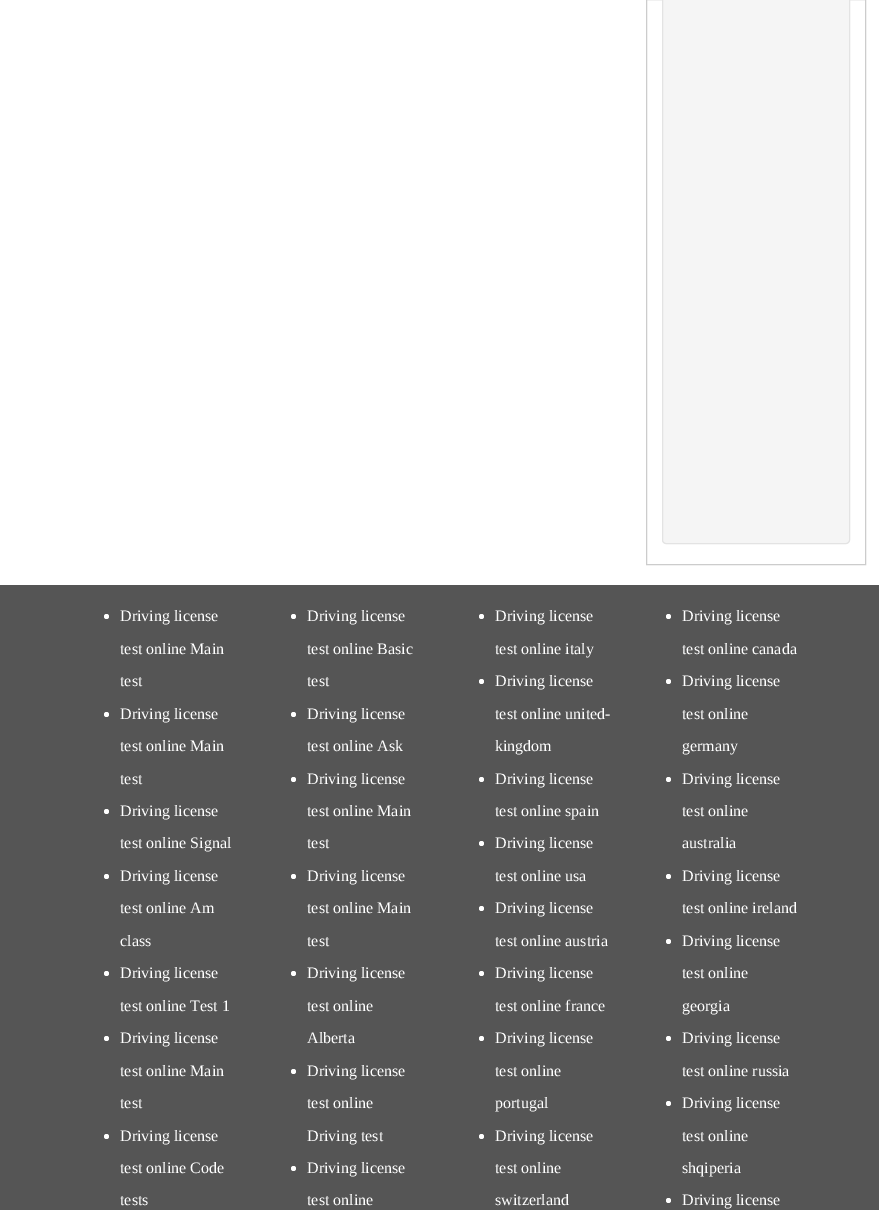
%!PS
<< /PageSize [879 1210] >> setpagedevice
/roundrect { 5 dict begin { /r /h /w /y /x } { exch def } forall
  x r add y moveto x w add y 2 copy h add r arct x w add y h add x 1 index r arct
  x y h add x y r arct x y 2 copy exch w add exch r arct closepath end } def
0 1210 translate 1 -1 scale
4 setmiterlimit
1 setgray
0 0 879 1210 rectfill
0.8 setgray
646.5 -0.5 219 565 rectstroke
0.961 setgray
662.5 -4.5 187 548 3.5 roundrect gsave fill grestore
0.89 setgray
stroke
0.333 setgray
0 585 879 625 rectfill
1 setgray
newpath 106.5 616.5 2.5 0 360 arc closepath fill
/LiberationSerif-Regular [16 0 0 -16 0 0] selectfont
120 621 moveto (Driving license) show
120 654 moveto (test online Main) show
120 686 moveto (test) show
newpath 106.5 714.5 2.5 0 360 arc closepath fill
120 719 moveto (Driving license) show
120 751 moveto (test online Main) show
120 784 moveto (test) show
newpath 106.5 811.5 2.5 0 360 arc closepath fill
120 816 moveto (Driving license) show
120 848 moveto (test online Signal) show
newpath 106.5 876.5 2.5 0 360 arc closepath fill
120 881 moveto (Driving license) show
120 913 moveto (test online Am) show
120 946 moveto (class) show
newpath 106.5 973.5 2.5 0 360 arc closepath fill
120 978 moveto (Driving license) show
120 1011 moveto (test online Test 1) show
newpath 106.5 1038.5 2.5 0 360 arc closepath fill
120 1043 moveto (Driving license) show
120 1076 moveto (test online Main) show
120 1108 moveto (test) show
newpath 106.5 1136.5 2.5 0 360 arc closepath fill
120 1141 moveto (Driving license) show
120 1173 moveto (test online Code) show
120 1205 moveto (tests) show
newpath 293.5 616.5 2.5 0 360 arc closepath fill
307 621 moveto (Driving license) show
307 654 moveto (test online Basic) show
307 686 moveto (test) show
newpath 293.5 714.5 2.5 0 360 arc closepath fill
307 719 moveto (Driving license) show
307 751 moveto (test online Ask) show
newpath 293.5 779.5 2.5 0 360 arc closepath fill
307 784 moveto (Driving license) show
307 816 moveto (test online Main) show
307 848 moveto (test) show
newpath 293.5 876.5 2.5 0 360 arc closepath fill
307 881 moveto (Driving license) show
307 913 moveto (test online Main) show
307 946 moveto (test) show
newpath 293.5 973.5 2.5 0 360 arc closepath fill
307 978 moveto (Driving license) show
307 1011 moveto (test online) show
307 1043 moveto (Alberta) show
newpath 293.5 1071.5 2.5 0 360 arc closepath fill
307 1076 moveto (Driving license) show
307 1108 moveto (test online) show
307 1141 moveto (Driving test) show
newpath 293.5 1168.5 2.5 0 360 arc closepath fill
307 1173 moveto (Driving license) show
307 1205 moveto (test online) show
newpath 481.5 616.5 2.5 0 360 arc closepath fill
495 621 moveto (Driving license) show
495 654 moveto (test online italy) show
newpath 481.5 681.5 2.5 0 360 arc closepath fill
495 686 moveto (Driving license) show
495 719 moveto (test online united-) show
495 751 moveto (kingdom) show
newpath 481.5 779.5 2.5 0 360 arc closepath fill
495 784 moveto (Driving license) show
495 816 moveto (test online spain) show
newpath 481.5 843.5 2.5 0 360 arc closepath fill
495 848 moveto (Driving license) show
495 881 moveto (test online usa) show
newpath 481.5 908.5 2.5 0 360 arc closepath fill
495 913 moveto (Driving license) show
495 946 moveto (test online austria) show
newpath 481.5 973.5 2.5 0 360 arc closepath fill
495 978 moveto (Driving license) show
495 1011 moveto (test online france) show
newpath 481.5 1038.5 2.5 0 360 arc closepath fill
495 1043 moveto (Driving license) show
495 1076 moveto (test online) show
495 1108 moveto (portugal) show
newpath 481.5 1136.5 2.5 0 360 arc closepath fill
495 1141 moveto (Driving license) show
495 1173 moveto (test online) show
495 1205 moveto (switzerland) show
newpath 668.5 616.5 2.5 0 360 arc closepath fill
682 621 moveto (Driving license) show
682 654 moveto (test online canada) show
newpath 668.5 681.5 2.5 0 360 arc closepath fill
682 686 moveto (Driving license) show
682 719 moveto (test online) show
682 751 moveto (germany) show
newpath 668.5 779.5 2.5 0 360 arc closepath fill
682 784 moveto (Driving license) show
682 816 moveto (test online) show
682 848 moveto (australia) show
newpath 668.5 876.5 2.5 0 360 arc closepath fill
682 881 moveto (Driving license) show
682 913 moveto (test online ireland) show
newpath 668.5 941.5 2.5 0 360 arc closepath fill
682 946 moveto (Driving license) show
682 978 moveto (test online) show
682 1011 moveto (georgia) show
newpath 668.5 1038.5 2.5 0 360 arc closepath fill
682 1043 moveto (Driving license) show
682 1076 moveto (test online russia) show
newpath 668.5 1103.5 2.5 0 360 arc closepath fill
682 1108 moveto (Driving license) show
682 1141 moveto (test online) show
682 1173 moveto (shqiperia) show
newpath 668.5 1200.5 2.5 0 360 arc closepath fill
682 1205 moveto (Driving license) show
showpage
